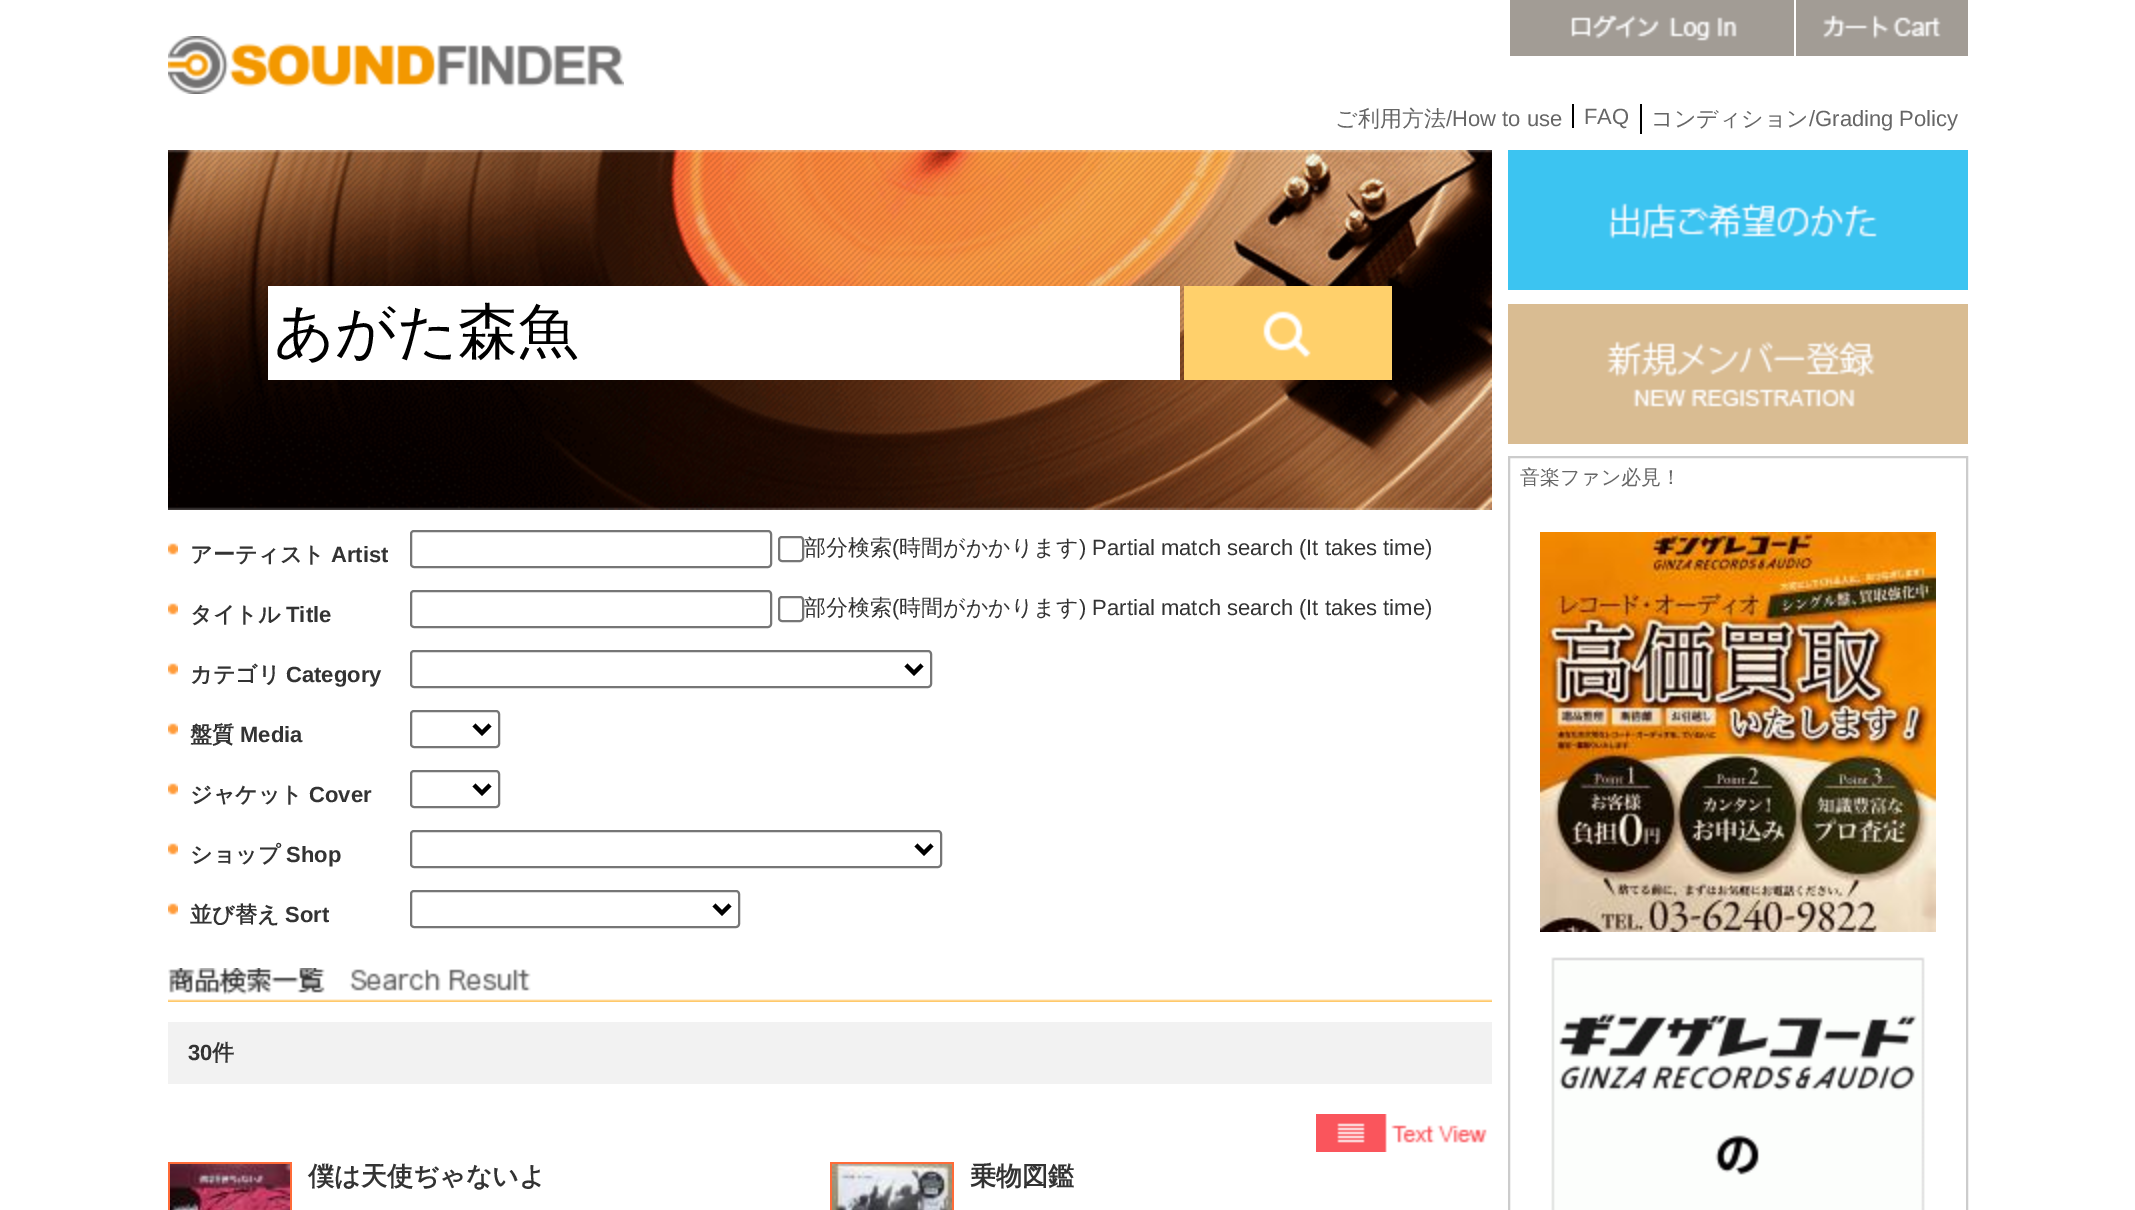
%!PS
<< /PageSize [2135 1210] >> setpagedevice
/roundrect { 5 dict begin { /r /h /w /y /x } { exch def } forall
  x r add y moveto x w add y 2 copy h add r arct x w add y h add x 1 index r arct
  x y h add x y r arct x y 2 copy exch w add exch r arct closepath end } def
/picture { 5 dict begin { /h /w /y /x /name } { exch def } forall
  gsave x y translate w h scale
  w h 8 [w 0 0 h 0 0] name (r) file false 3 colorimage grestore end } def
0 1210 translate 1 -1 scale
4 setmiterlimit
1 setgray
0 0 2135 1210 rectfill
(img1.rgb) 1510 0 284 56 picture
(img2.rgb) 1796 0 172 56 picture
(img3.rgb) 168 36 456 58 picture
/WenQuanYiZenHei-Medium [22 0 0 -22 0 0] selectfont
0.4 setgray
1335 126 moveto (ご利用方法) show
/LiberationSans-Regular [22 0 0 -22 0 0] selectfont
1446 126 moveto (/How to use) show
0 setgray
1572 104 2 24 rectfill
0.4 setgray
1584 124 moveto (FAQ) show
0 setgray
1640 104 2 30 rectfill
/WenQuanYiZenHei-Medium [22 0 0 -22 0 0] selectfont
0.4 setgray
1651 126 moveto (コンディション) show
/LiberationSans-Regular [22 0 0 -22 0 0] selectfont
1809 126 moveto (/Grading Policy) show
(img4.rgb) 168 150 1324 360 picture
1 setgray
268 286 912 94 rectfill
/WenQuanYiZenHei-Medium [60 0 0 -60 0 0] selectfont
0 setgray
274 352 moveto (あがた森魚) show
(img5.rgb) 1184 286 208 94 picture
(img6.rgb) 168 543 10 12 picture
/WenQuanYiZenHei-Bold [22 0 0 -22 0 0] selectfont
0.2 setgray
190 562 moveto (アーティスト) show
/LiberationSans-Bold [22 0 0 -22 0 0] selectfont
331 562 moveto (Artist) show
0.463 setgray
2 setlinewidth
411 531 360 36 3 roundrect stroke
779 537 24 24 3 roundrect stroke
/WenQuanYiZenHei-Medium [22 0 0 -22 0 0] selectfont
0.2 setgray
804 555 moveto (部分検索) show
/LiberationSans-Regular [22 0 0 -22 0 0] selectfont
892 555 moveto (\() show
/WenQuanYiZenHei-Medium [22 0 0 -22 0 0] selectfont
899 555 moveto (時間がかかります) show
/LiberationSans-Regular [22 0 0 -22 0 0] selectfont
1079 555 moveto (\) Partial match search \(It takes time\)) show
(img6.rgb) 168 603 10 12 picture
/WenQuanYiZenHei-Bold [22 0 0 -22 0 0] selectfont
190 622 moveto (タイトル) show
/LiberationSans-Bold [22 0 0 -22 0 0] selectfont
286 622 moveto (Title) show
0.463 setgray
411 591 360 36 3 roundrect stroke
779 597 24 24 3 roundrect stroke
/WenQuanYiZenHei-Medium [22 0 0 -22 0 0] selectfont
0.2 setgray
804 615 moveto (部分検索) show
/LiberationSans-Regular [22 0 0 -22 0 0] selectfont
892 615 moveto (\() show
/WenQuanYiZenHei-Medium [22 0 0 -22 0 0] selectfont
899 615 moveto (時間がかかります) show
/LiberationSans-Regular [22 0 0 -22 0 0] selectfont
1079 615 moveto (\) Partial match search \(It takes time\)) show
(img6.rgb) 168 663 10 12 picture
/WenQuanYiZenHei-Bold [22 0 0 -22 0 0] selectfont
190 682 moveto (カテゴリ) show
/LiberationSans-Bold [22 0 0 -22 0 0] selectfont
286 682 moveto (Category) show
0.463 setgray
411 651 520 36 3 roundrect stroke
0 setgray
4 setlinewidth
newpath 906 665 moveto 914 673 lineto 922 665 lineto stroke
(img6.rgb) 168 723 10 12 picture
/WenQuanYiZenHei-Bold [22 0 0 -22 0 0] selectfont
0.2 setgray
190 742 moveto (盤質) show
/LiberationSans-Bold [22 0 0 -22 0 0] selectfont
240 742 moveto (Media) show
0.463 setgray
2 setlinewidth
411 711 88 36 3 roundrect stroke
0 setgray
4 setlinewidth
newpath 474 725 moveto 482 733 lineto 490 725 lineto stroke
(img6.rgb) 168 783 10 12 picture
/WenQuanYiZenHei-Bold [22 0 0 -22 0 0] selectfont
0.2 setgray
190 802 moveto (ジャケット) show
/LiberationSans-Bold [22 0 0 -22 0 0] selectfont
309 802 moveto (Cover) show
0.463 setgray
2 setlinewidth
411 771 88 36 3 roundrect stroke
0 setgray
4 setlinewidth
newpath 474 785 moveto 482 793 lineto 490 785 lineto stroke
(img6.rgb) 168 843 10 12 picture
/WenQuanYiZenHei-Bold [22 0 0 -22 0 0] selectfont
0.2 setgray
190 862 moveto (ショップ) show
/LiberationSans-Bold [22 0 0 -22 0 0] selectfont
286 862 moveto (Shop) show
0.463 setgray
2 setlinewidth
411 831 530 36 3 roundrect stroke
0 setgray
4 setlinewidth
newpath 916 845 moveto 924 853 lineto 932 845 lineto stroke
(img6.rgb) 168 903 10 12 picture
/WenQuanYiZenHei-Bold [22 0 0 -22 0 0] selectfont
0.2 setgray
190 922 moveto (並び替え) show
/LiberationSans-Bold [22 0 0 -22 0 0] selectfont
285 922 moveto (Sort) show
0.463 setgray
2 setlinewidth
411 891 328 36 3 roundrect stroke
0 setgray
4 setlinewidth
newpath 714 905 moveto 722 913 lineto 730 905 lineto stroke
(img7.rgb) 168 968 1324 34 picture
0.949 setgray
168 1022 1324 62 rectfill
0.2 setgray
188 1060 moveto (30) show
/WenQuanYiZenHei-Bold [22 0 0 -22 0 0] selectfont
212 1060 moveto (件) show
(img8.rgb) 1316 1114 171 38 picture
1 0.42 0.22 setrgbcolor
168 1162 124 48 rectfill
(img9.rgb) 170 1164 120 46 picture
/WenQuanYiZenHei-Bold [26 0 0 -26 0 0] selectfont
0.2 setgray
308 1185 moveto (僕は天使ぢゃないよ) show
1 0.42 0.22 setrgbcolor
830 1162 124 48 rectfill
(img10.rgb) 832 1164 120 46 picture
0.2 setgray
970 1185 moveto (乗物図鑑) show
(img11.rgb) 1508 150 460 140 picture
(img12.rgb) 1508 304 460 140 picture
0.8 setgray
2 setlinewidth
1509 457 458 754 rectstroke
/WenQuanYiZenHei-Medium [20 0 0 -20 0 0] selectfont
0.4 setgray
1520 484 moveto (音楽ファン必見！) show
(img13.rgb) 1540 532 396 400 picture
(img14.rgb) 1551 957 374 253 picture
showpage
